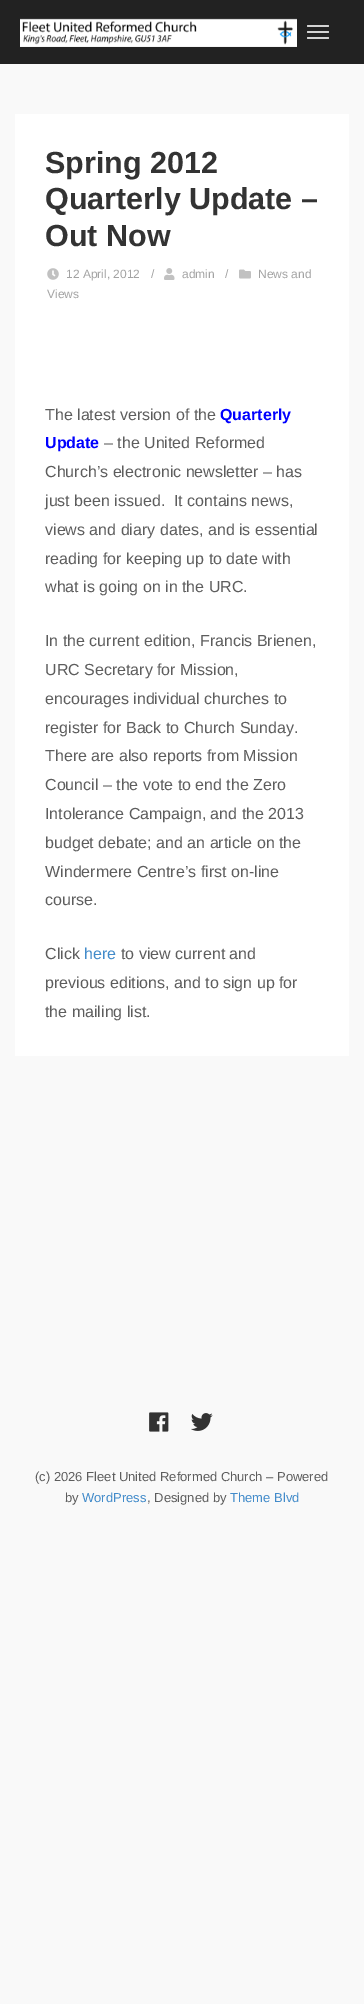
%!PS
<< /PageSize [364 2004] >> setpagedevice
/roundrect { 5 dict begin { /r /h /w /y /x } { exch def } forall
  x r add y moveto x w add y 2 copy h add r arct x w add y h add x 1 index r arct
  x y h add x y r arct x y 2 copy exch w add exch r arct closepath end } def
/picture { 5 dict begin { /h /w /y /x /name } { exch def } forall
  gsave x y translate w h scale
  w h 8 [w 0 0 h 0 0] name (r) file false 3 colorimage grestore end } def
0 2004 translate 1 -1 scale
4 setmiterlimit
0.976 setgray
0 0 364 2004 rectfill
0.133 setgray
0 0 364 64 rectfill
(img1.rgb) 20 18 277 29 picture
0.827 setgray
307 25 22 2 1 roundrect fill
307 31 22 2 1 roundrect fill
307 37 22 2 1 roundrect fill
1 setgray
15 114 334 942 rectfill
/LiberationSans-Bold [30.5 0 0 -30.5 0 0] selectfont
0.2 setgray
45 173 moveto (Spring 2012) show
45 209 moveto (Quarterly Update –) show
45 246 moveto (Out Now) show
(img2.rgb) 239 269 12 10 picture
/LiberationSans-Regular [12 0 0 -12 0 0] selectfont
0.639 setgray
258 278 moveto (News and) show
47 298 moveto (Views) show
(img3.rgb) 47 268 12 12 picture
66 278 moveto (12 April, 2012) show
151 278 moveto (/) show
(img4.rgb) 164 268 11 12 picture
182 278 moveto (admin) show
225 278 moveto (/) show
/LiberationSans-Regular [16 0 0 -16 0 0] selectfont
0.365 setgray
45 420 moveto (The latest version of the) show
/LiberationSans-Bold [16 0 0 -16 0 0] selectfont
0 0 1 setrgbcolor
220 420 moveto (Quarterly) show
45 448 moveto (Update) show
/LiberationSans-Regular [16 0 0 -16 0 0] selectfont
0.365 setgray
104 448 moveto (– the United Reformed) show
45 477 moveto (Church’s electronic newsletter – has) show
45 506 moveto (just been issued.) show
174 506 moveto (It contains news,) show
45 535 moveto (views and diary dates, and is essential) show
45 564 moveto (reading for keeping up to date with) show
45 592 moveto (what is going on in the URC.) show
45 646 moveto (In the current edition, Francis Brienen,) show
45 675 moveto (URC Secretary for Mission,) show
45 704 moveto (encourages individual churches to) show
45 733 moveto (register for Back to Church Sunday.) show
45 761 moveto (There are also reports from Mission) show
45 790 moveto (Council – the vote to end the Zero) show
45 819 moveto (Intolerance Campaign, and the 2013) show
45 848 moveto (budget debate; and an article on the) show
45 877 moveto (Windermere Centre’s first on-line) show
45 905 moveto (course.) show
45 959 moveto (Click) show
0.259 0.545 0.792 setrgbcolor
84 959 moveto (here) show
0.365 setgray
121 959 moveto (to view current and) show
45 988 moveto (previous editions, and to sign up for) show
45 1017 moveto (the mailing list.) show
(img5.rgb) 149 1412 20 20 picture
(img6.rgb) 191 1413 22 18 picture
/LiberationSans-Regular [13 0 0 -13 0 0] selectfont
35 1481 moveto (\(c\) 2026 Fleet United Reformed Church – Powered) show
65 1502 moveto (by) show
0.259 0.545 0.792 setrgbcolor
82 1502 moveto (WordPress) show
0.365 setgray
147 1502 moveto (, Designed by) show
0.259 0.545 0.792 setrgbcolor
230 1502 moveto (Theme Blvd) show
showpage
